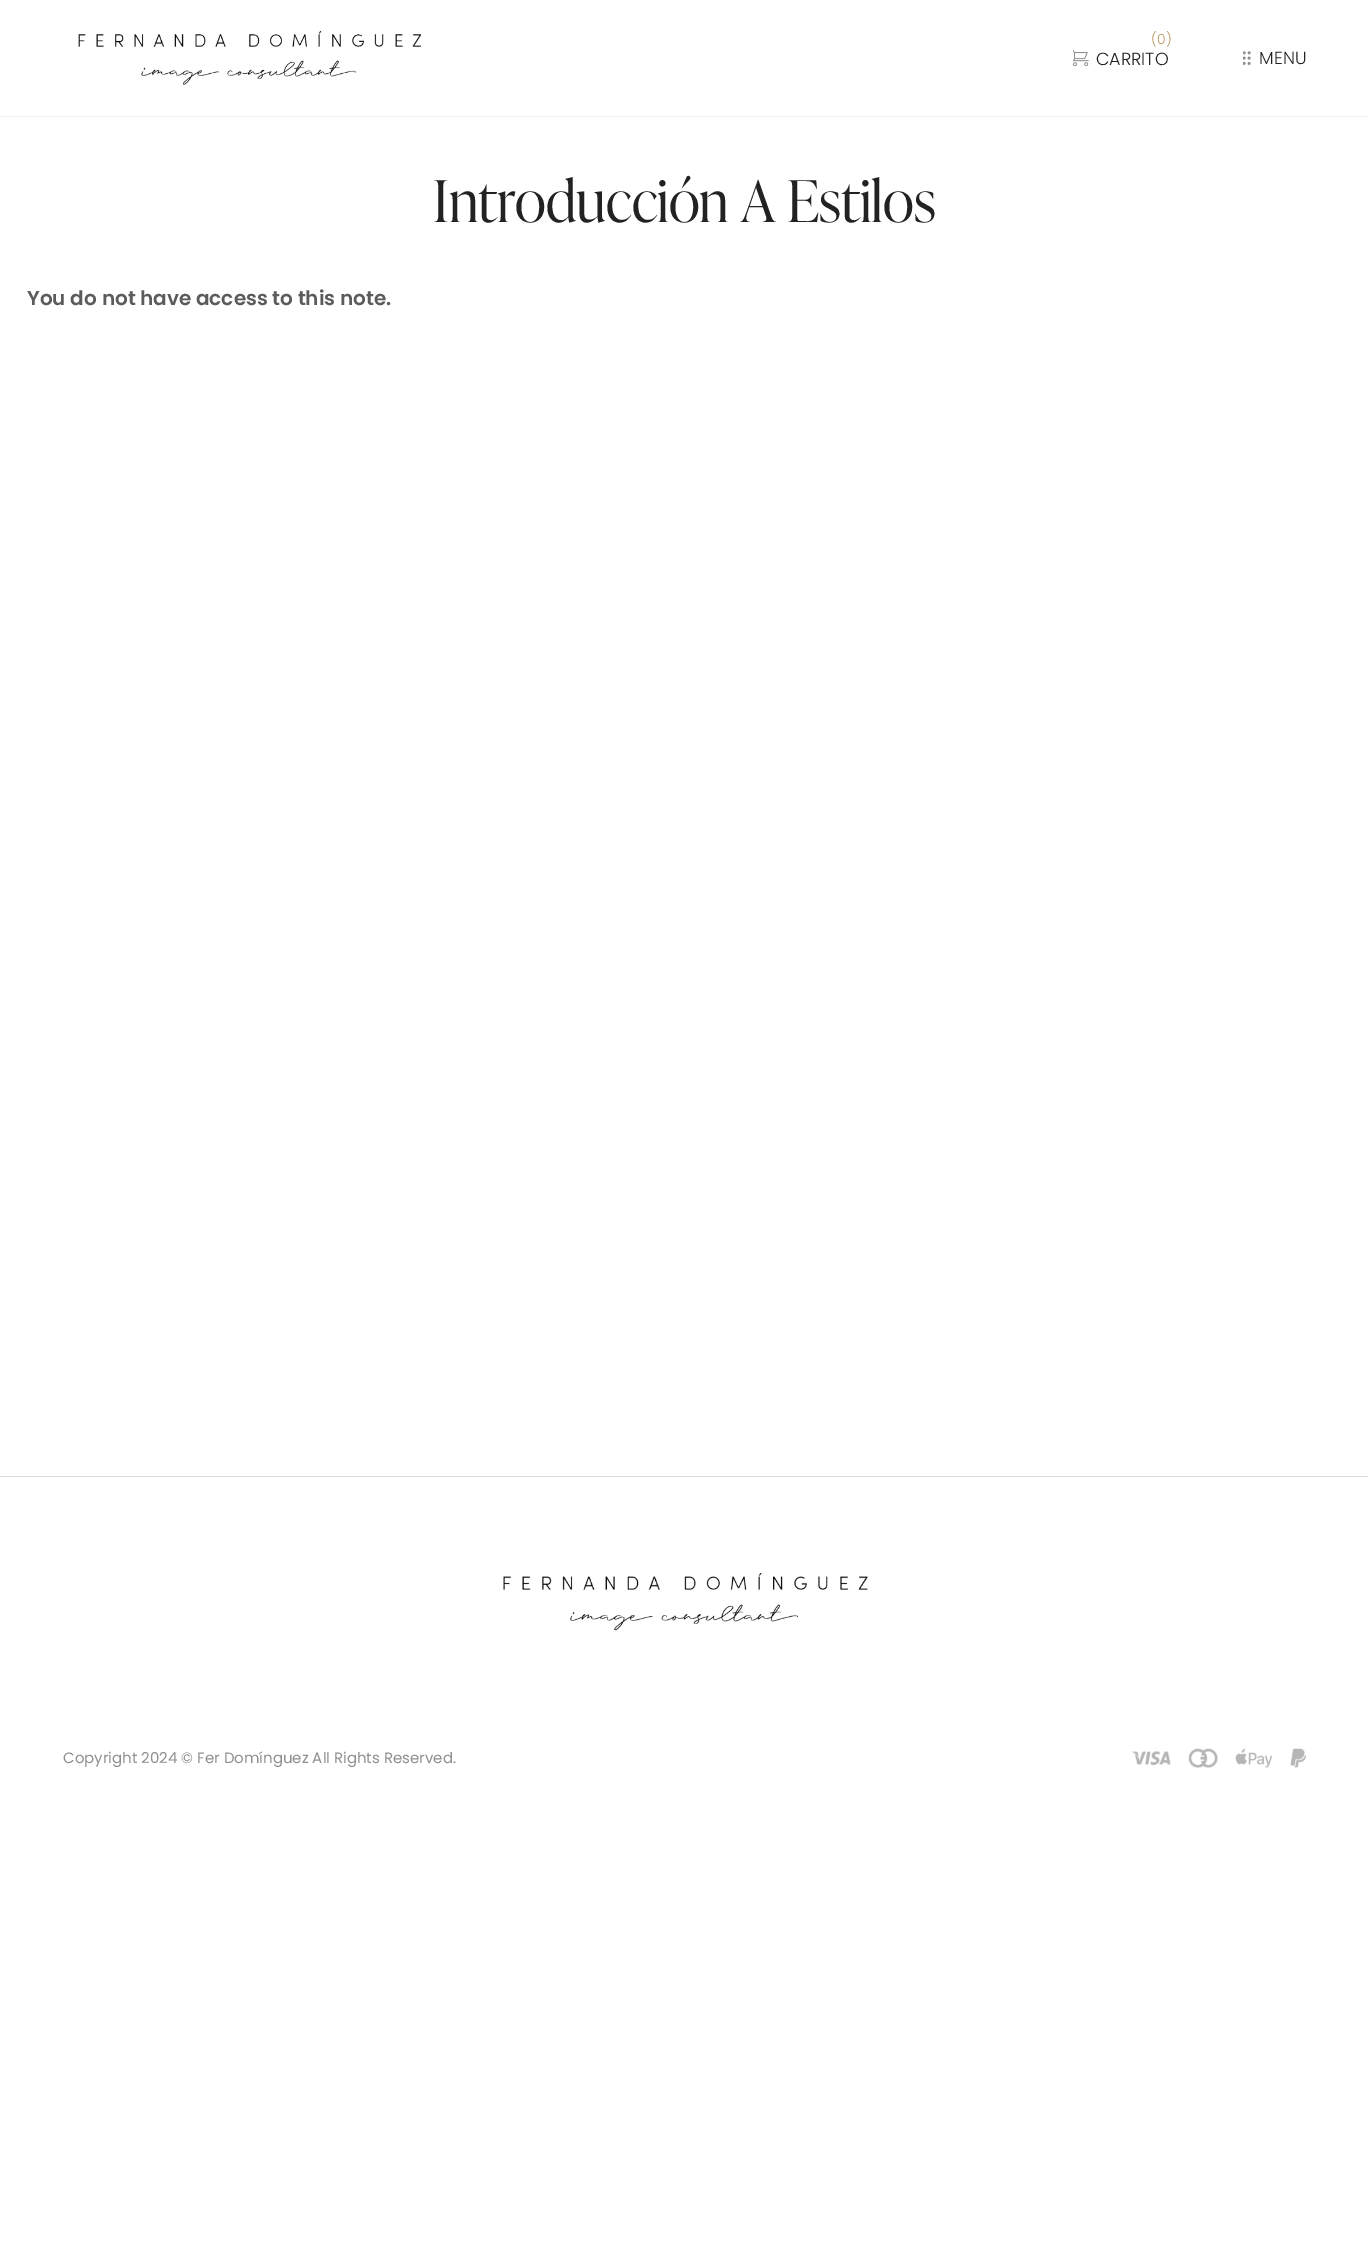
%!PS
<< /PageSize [1368 2266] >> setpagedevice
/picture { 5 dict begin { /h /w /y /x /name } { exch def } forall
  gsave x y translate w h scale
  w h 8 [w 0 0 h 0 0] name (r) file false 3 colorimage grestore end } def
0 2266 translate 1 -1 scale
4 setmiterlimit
1 setgray
0 0 1368 2266 rectfill
(img1.rgb) 78 31 343 54 picture
/Poppins-Light [14 0 0 -14 0 0] selectfont
0.741 0.608 0.396 setrgbcolor
1151 44 moveto (\(0\)) show
(img2.rgb) 1073 50 16 16 picture
/Poppins-Light [17.5 0 0 -17.5 0 0] selectfont
0.133 setgray
1096 65 moveto (CARRITO) show
(img3.rgb) 1243 51 8 14 picture
1259 64 moveto (MENU) show
0.933 setgray
0 116 1368 1 rectfill
/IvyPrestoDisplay-Light [57.5 0 0 -57.5 0 0] selectfont
0.133 setgray
433 222 moveto (Introducción A Estilos) show
/Poppins-SemiBold [20 0 0 -20 0 0] selectfont
0.357 setgray
27 305 moveto (You do not have access to this note.) show
0.859 setgray
0 1476 1368 1 rectfill
(img4.rgb) 503 1573 365 58 picture
/Poppins-Regular [15 0 0 -15 0 0] selectfont
0.561 setgray
63 1763 moveto (Copyright 2024 © Fer Domínguez All Rights Reserved.) show
(img5.rgb) 1131 1748 175 20 picture
showpage
